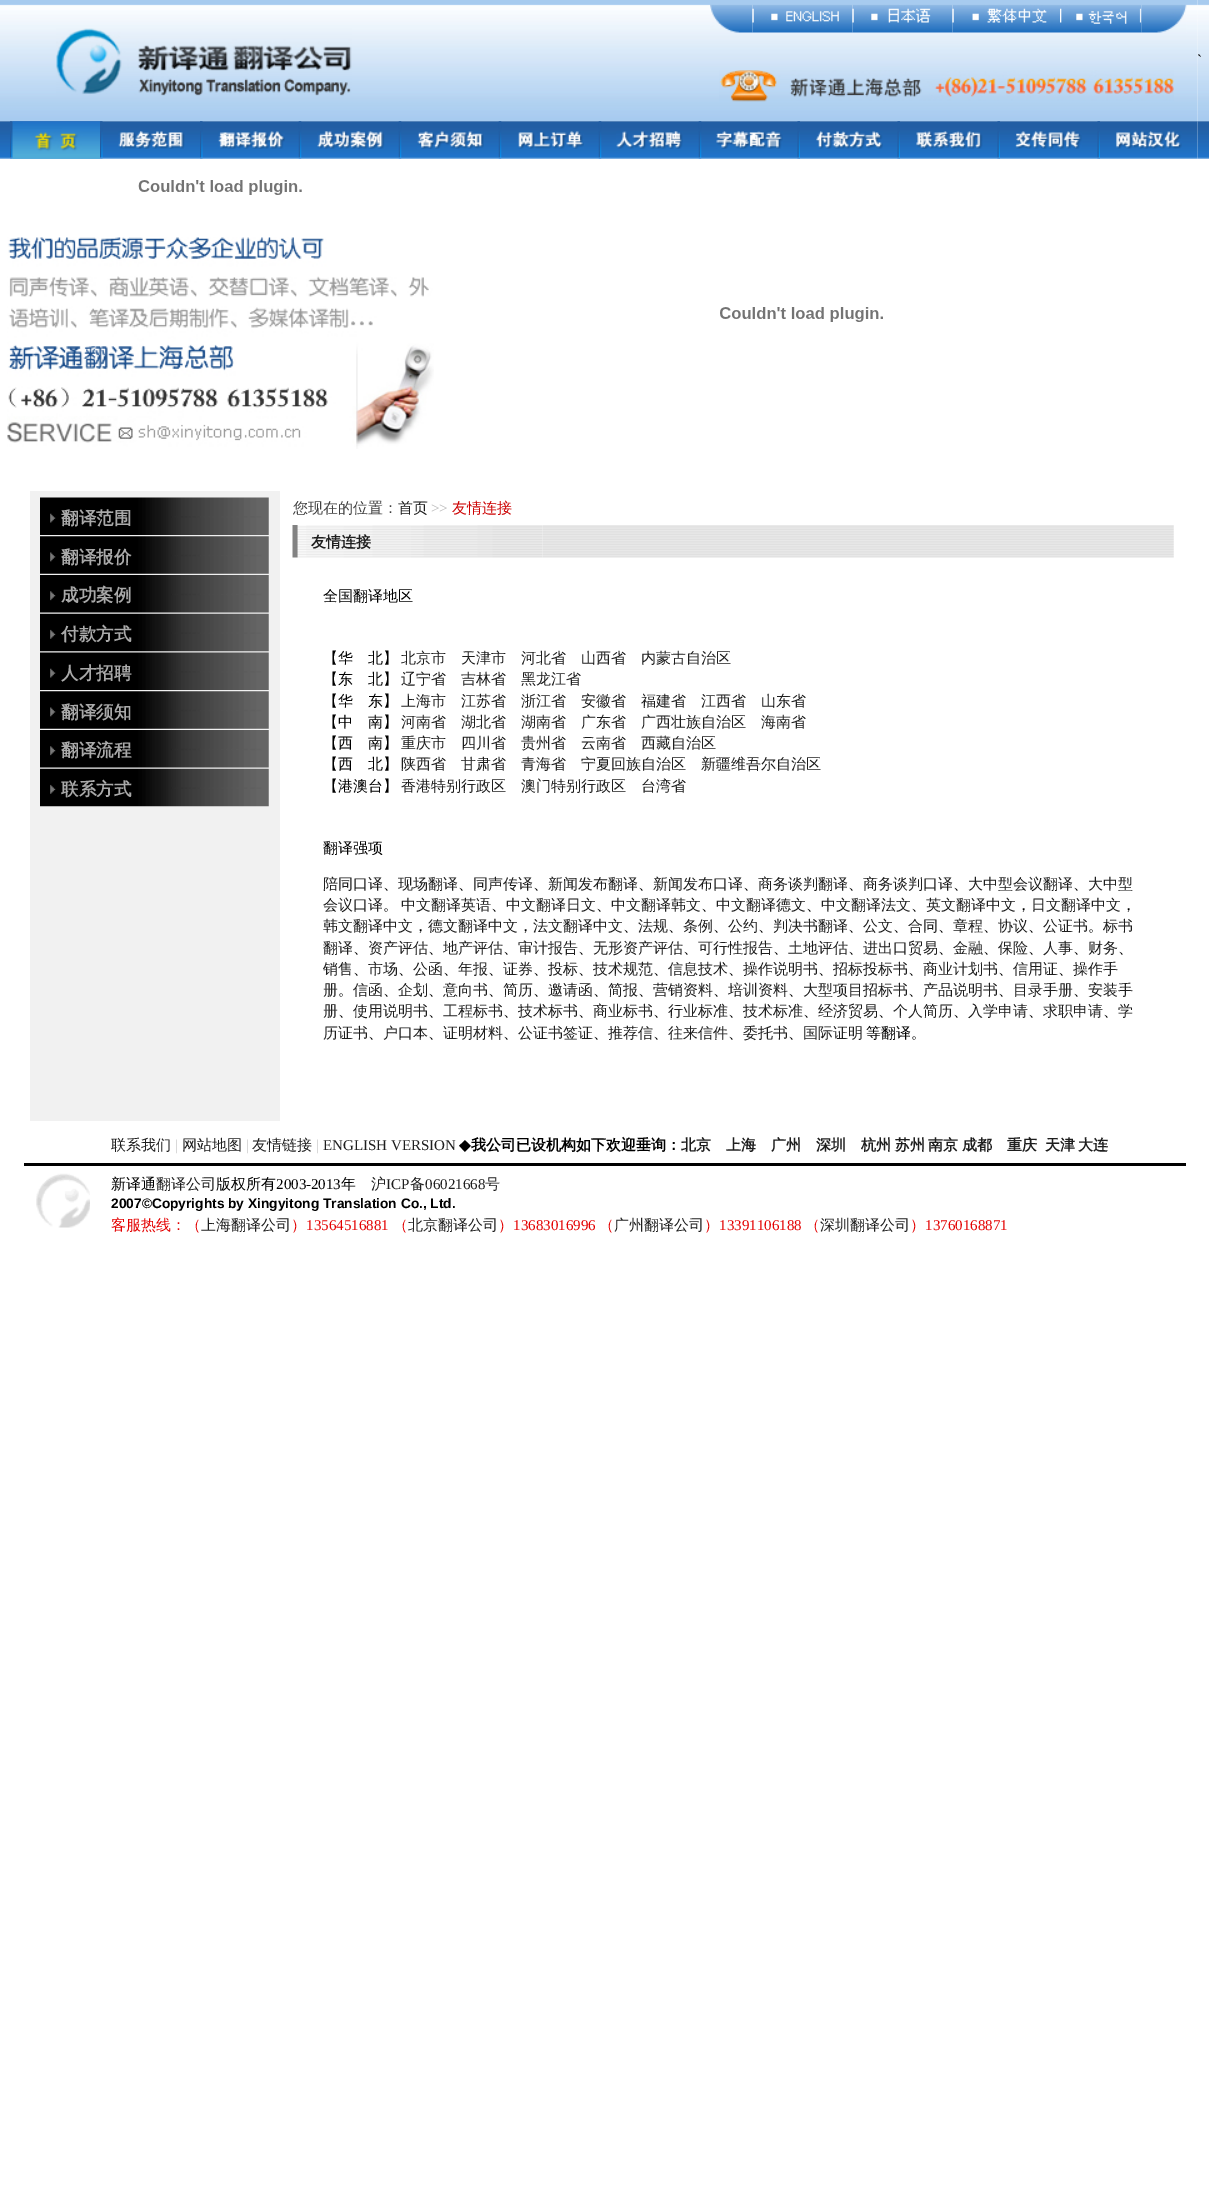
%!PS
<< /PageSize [1209 2207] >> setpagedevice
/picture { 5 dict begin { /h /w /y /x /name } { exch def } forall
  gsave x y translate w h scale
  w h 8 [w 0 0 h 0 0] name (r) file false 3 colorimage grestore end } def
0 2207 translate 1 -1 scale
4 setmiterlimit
1 setgray
0 0 1209 2207 rectfill
(img1.rgb) 0 0 10 122 picture
(img2.rgb) 10 0 1188 122 picture
(img3.rgb) 56 28 296 68 picture
(img4.rgb) 710 4 43 29 picture
(img5.rgb) 752 4 101 29 picture
(img6.rgb) 852 4 101 29 picture
(img7.rgb) 952 4 108 29 picture
(img8.rgb) 1060 4 82 29 picture
(img9.rgb) 1141 4 46 29 picture
(img10.rgb) 719 70 455 32 picture
(img11.rgb) 1197 0 12 122 picture
/LiberationSerif-Regular [15 0 0 -15 0 0] selectfont
0 setgray
1197 65 moveto (`) show
(img12.rgb) 0 121 10 38 picture
(img13.rgb) 10 121 1188 38 picture
(img14.rgb) 10 121 3 38 picture
(img15.rgb) 12 121 88 38 picture
(img14.rgb) 100 121 3 38 picture
(img16.rgb) 118 131 67 18 picture
(img14.rgb) 200 121 3 38 picture
(img17.rgb) 218 131 67 18 picture
(img18.rgb) 298 121 4 38 picture
(img19.rgb) 317 131 68 18 picture
(img20.rgb) 398 121 4 38 picture
(img21.rgb) 417 131 67 18 picture
(img20.rgb) 498 121 4 38 picture
(img22.rgb) 518 131 66 18 picture
(img20.rgb) 598 121 4 38 picture
(img23.rgb) 616 131 67 18 picture
(img20.rgb) 698 121 4 38 picture
(img24.rgb) 716 131 67 18 picture
(img25.rgb) 797 121 3 38 picture
(img26.rgb) 816 131 67 18 picture
(img25.rgb) 897 121 3 38 picture
(img27.rgb) 916 131 67 18 picture
(img25.rgb) 997 121 3 38 picture
(img28.rgb) 1015 131 67 18 picture
(img25.rgb) 1097 121 3 38 picture
(img29.rgb) 1116 131 66 18 picture
(img30.rgb) 1197 121 12 38 picture
(img31.rgb) 138 180 164 15 picture
(img32.rgb) 7 237 427 212 picture
(img33.rgb) 720 307 163 15 picture
0.945 setgray
30 491 250 630 rectfill
(img34.rgb) 40 497 229 38 picture
/WenQuanYiZenHei-Bold [17.5 0 0 -17.5 0 0] selectfont
0.663 setgray
61 524 moveto (翻译范围) show
(img35.rgb) 40 536 229 38 picture
61 563 moveto (翻译报价) show
(img36.rgb) 40 575 229 38 picture
61 601 moveto (成功案例) show
(img37.rgb) 40 613 229 39 picture
61 640 moveto (付款方式) show
(img34.rgb) 40 652 229 38 picture
61 679 moveto (人才招聘) show
(img35.rgb) 40 691 229 38 picture
61 718 moveto (翻译须知) show
(img38.rgb) 40 730 229 38 picture
61 756 moveto (翻译流程) show
(img37.rgb) 40 768 229 39 picture
61 795 moveto (联系方式) show
/WenQuanYiZenHei-Medium [15 0 0 -15 0 0] selectfont
0.251 setgray
293 513 moveto (您现在的位置：) show
0.118 setgray
398 513 moveto (首页) show
/LiberationSerif-Regular [15 0 0 -15 0 0] selectfont
0.718 setgray
431 513 moveto (>>) show
/WenQuanYiZenHei-Medium [15 0 0 -15 0 0] selectfont
0.8 0 0 setrgbcolor
452 513 moveto (友情连接) show
(img39.rgb) 292 525 251 33 picture
/WenQuanYiZenHei-Bold [15 0 0 -15 0 0] selectfont
0.118 setgray
311 547 moveto (友情连接) show
(img40.rgb) 542 525 632 33 picture
/WenQuanYiZenHei-Medium [15 0 0 -15 0 0] selectfont
0 setgray
323 601 moveto (全国翻译地区) show
323 663 moveto (【华　北】) show
0.118 setgray
401 663 moveto (北京市) show
461 663 moveto (天津市) show
521 663 moveto (河北省) show
581 663 moveto (山西省) show
641 663 moveto (内蒙古自治区) show
0 setgray
323 684 moveto (【东　北】) show
0.118 setgray
401 684 moveto (辽宁省) show
461 684 moveto (吉林省) show
521 684 moveto (黑龙江省) show
0 setgray
323 706 moveto (【华　东】) show
0.118 setgray
401 706 moveto (上海市) show
461 706 moveto (江苏省) show
521 706 moveto (浙江省) show
581 706 moveto (安徽省) show
641 706 moveto (福建省) show
701 706 moveto (江西省) show
761 706 moveto (山东省) show
0 setgray
323 727 moveto (【中　南】) show
0.118 setgray
401 727 moveto (河南省) show
461 727 moveto (湖北省) show
521 727 moveto (湖南省) show
581 727 moveto (广东省) show
641 727 moveto (广西壮族自治区) show
761 727 moveto (海南省) show
0 setgray
323 748 moveto (【西　南】) show
0.118 setgray
401 748 moveto (重庆市) show
461 748 moveto (四川省) show
521 748 moveto (贵州省) show
581 748 moveto (云南省) show
641 748 moveto (西藏自治区) show
0 setgray
323 769 moveto (【西　北】) show
0.118 setgray
401 769 moveto (陕西省) show
461 769 moveto (甘肃省) show
521 769 moveto (青海省) show
581 769 moveto (宁夏回族自治区) show
701 769 moveto (新疆维吾尔自治区) show
0 setgray
323 791 moveto (【港澳台】) show
0.118 setgray
401 791 moveto (香港特别行政区) show
521 791 moveto (澳门特别行政区) show
641 791 moveto (台湾省) show
0 setgray
323 853 moveto (翻译强项) show
0.118 setgray
323 889 moveto (陪同口译) show
0 setgray
383 889 moveto (、) show
0.118 setgray
398 889 moveto (现场翻译) show
0 setgray
458 889 moveto (、) show
0.118 setgray
473 889 moveto (同声传译) show
0 setgray
533 889 moveto (、) show
0.118 setgray
548 889 moveto (新闻发布翻译) show
0 setgray
638 889 moveto (、) show
0.118 setgray
653 889 moveto (新闻发布口译) show
0 setgray
743 889 moveto (、) show
0.118 setgray
758 889 moveto (商务谈判翻译) show
0 setgray
848 889 moveto (、) show
0.118 setgray
863 889 moveto (商务谈判口译) show
0 setgray
953 889 moveto (、) show
0.118 setgray
968 889 moveto (大中型会议翻译) show
0 setgray
1073 889 moveto (、) show
0.118 setgray
1088 889 moveto (大中型) show
323 910 moveto (会议口译) show
0 setgray
383 910 moveto (。) show
0.118 setgray
401 910 moveto (中文翻译英语) show
0 setgray
491 910 moveto (、) show
0.118 setgray
506 910 moveto (中文翻译日文) show
0 setgray
596 910 moveto (、) show
0.118 setgray
611 910 moveto (中文翻译韩文) show
0 setgray
701 910 moveto (、) show
0.118 setgray
716 910 moveto (中文翻译德文) show
0 setgray
806 910 moveto (、) show
0.118 setgray
821 910 moveto (中文翻译法文) show
0 setgray
911 910 moveto (、) show
0.118 setgray
926 910 moveto (英文翻译中文) show
0 setgray
1016 910 moveto (，) show
0.118 setgray
1031 910 moveto (日文翻译中文) show
0 setgray
1121 910 moveto (，) show
0.118 setgray
323 931 moveto (韩文翻译中文) show
0 setgray
413 931 moveto (，) show
0.118 setgray
428 931 moveto (德文翻译中文) show
0 setgray
518 931 moveto (，) show
0.118 setgray
533 931 moveto (法文翻译中文) show
0 setgray
623 931 moveto (、) show
0.118 setgray
638 931 moveto (法规) show
0 setgray
668 931 moveto (、) show
0.118 setgray
683 931 moveto (条例) show
0 setgray
713 931 moveto (、) show
0.118 setgray
728 931 moveto (公约) show
0 setgray
758 931 moveto (、) show
0.118 setgray
773 931 moveto (判决书翻译) show
0 setgray
848 931 moveto (、) show
0.118 setgray
863 931 moveto (公文) show
0 setgray
893 931 moveto (、) show
0.118 setgray
908 931 moveto (合同) show
0 setgray
938 931 moveto (、) show
0.118 setgray
953 931 moveto (章程) show
0 setgray
983 931 moveto (、) show
0.118 setgray
998 931 moveto (协议) show
0 setgray
1028 931 moveto (、) show
0.118 setgray
1043 931 moveto (公证书) show
0 setgray
1088 931 moveto (。) show
0.118 setgray
1103 931 moveto (标书) show
323 953 moveto (翻译) show
0 setgray
353 953 moveto (、) show
0.118 setgray
368 953 moveto (资产评估) show
0 setgray
428 953 moveto (、) show
0.118 setgray
443 953 moveto (地产评估) show
0 setgray
503 953 moveto (、) show
0.118 setgray
518 953 moveto (审计报告) show
0 setgray
578 953 moveto (、) show
0.118 setgray
593 953 moveto (无形资产评估) show
0 setgray
683 953 moveto (、) show
0.118 setgray
698 953 moveto (可行性报告) show
0 setgray
773 953 moveto (、) show
0.118 setgray
788 953 moveto (土地评估) show
0 setgray
848 953 moveto (、) show
0.118 setgray
863 953 moveto (进出口贸易) show
0 setgray
938 953 moveto (、) show
0.118 setgray
953 953 moveto (金融) show
0 setgray
983 953 moveto (、) show
0.118 setgray
998 953 moveto (保险) show
0 setgray
1028 953 moveto (、) show
0.118 setgray
1043 953 moveto (人事) show
0 setgray
1073 953 moveto (、) show
0.118 setgray
1088 953 moveto (财务) show
0 setgray
1118 953 moveto (、) show
0.118 setgray
323 974 moveto (销售) show
0 setgray
353 974 moveto (、) show
0.118 setgray
368 974 moveto (市场) show
0 setgray
398 974 moveto (、) show
0.118 setgray
413 974 moveto (公函) show
0 setgray
443 974 moveto (、) show
0.118 setgray
458 974 moveto (年报) show
0 setgray
488 974 moveto (、) show
0.118 setgray
503 974 moveto (证券) show
0 setgray
533 974 moveto (、) show
0.118 setgray
548 974 moveto (投标) show
0 setgray
578 974 moveto (、) show
0.118 setgray
593 974 moveto (技术规范) show
0 setgray
653 974 moveto (、) show
0.118 setgray
668 974 moveto (信息技术) show
0 setgray
728 974 moveto (、) show
0.118 setgray
743 974 moveto (操作说明书) show
0 setgray
818 974 moveto (、) show
0.118 setgray
833 974 moveto (招标投标书) show
0 setgray
908 974 moveto (、) show
0.118 setgray
923 974 moveto (商业计划书) show
0 setgray
998 974 moveto (、) show
0.118 setgray
1013 974 moveto (信用证) show
0 setgray
1058 974 moveto (、) show
0.118 setgray
1073 974 moveto (操作手) show
323 995 moveto (册) show
0 setgray
338 995 moveto (。) show
0.118 setgray
353 995 moveto (信函) show
0 setgray
383 995 moveto (、) show
0.118 setgray
398 995 moveto (企划) show
0 setgray
428 995 moveto (、) show
0.118 setgray
443 995 moveto (意向书) show
0 setgray
488 995 moveto (、) show
0.118 setgray
503 995 moveto (简历) show
0 setgray
533 995 moveto (、) show
0.118 setgray
548 995 moveto (邀请函) show
0 setgray
593 995 moveto (、) show
0.118 setgray
608 995 moveto (简报) show
0 setgray
638 995 moveto (、) show
0.118 setgray
653 995 moveto (营销资料) show
0 setgray
713 995 moveto (、) show
0.118 setgray
728 995 moveto (培训资料) show
0 setgray
788 995 moveto (、) show
0.118 setgray
803 995 moveto (大型项目招标书) show
0 setgray
908 995 moveto (、) show
0.118 setgray
923 995 moveto (产品说明书) show
0 setgray
998 995 moveto (、) show
0.118 setgray
1013 995 moveto (目录手册) show
0 setgray
1073 995 moveto (、) show
0.118 setgray
1088 995 moveto (安装手) show
323 1016 moveto (册) show
0 setgray
338 1016 moveto (、) show
0.118 setgray
353 1016 moveto (使用说明书) show
0 setgray
428 1016 moveto (、) show
0.118 setgray
443 1016 moveto (工程标书) show
0 setgray
503 1016 moveto (、) show
0.118 setgray
518 1016 moveto (技术标书) show
0 setgray
578 1016 moveto (、) show
0.118 setgray
593 1016 moveto (商业标书) show
0 setgray
653 1016 moveto (、) show
0.118 setgray
668 1016 moveto (行业标准) show
0 setgray
728 1016 moveto (、) show
0.118 setgray
743 1016 moveto (技术标准) show
0 setgray
803 1016 moveto (、) show
0.118 setgray
818 1016 moveto (经济贸易) show
0 setgray
878 1016 moveto (、) show
0.118 setgray
893 1016 moveto (个人简历) show
0 setgray
953 1016 moveto (、) show
0.118 setgray
968 1016 moveto (入学申请) show
0 setgray
1028 1016 moveto (、) show
0.118 setgray
1043 1016 moveto (求职申请) show
0 setgray
1103 1016 moveto (、) show
0.118 setgray
1118 1016 moveto (学) show
323 1038 moveto (历证书) show
0 setgray
368 1038 moveto (、) show
0.118 setgray
383 1038 moveto (户口本) show
0 setgray
428 1038 moveto (、) show
0.118 setgray
443 1038 moveto (证明材料) show
0 setgray
503 1038 moveto (、) show
0.118 setgray
518 1038 moveto (公证书签证) show
0 setgray
593 1038 moveto (、) show
0.118 setgray
608 1038 moveto (推荐信) show
0 setgray
653 1038 moveto (、) show
0.118 setgray
668 1038 moveto (往来信件) show
0 setgray
728 1038 moveto (、) show
0.118 setgray
743 1038 moveto (委托书) show
0 setgray
788 1038 moveto (、) show
0.118 setgray
803 1038 moveto (国际证明) show
0 setgray
866 1038 moveto (等翻译。) show
24 1163 1162 3 rectfill
0.118 setgray
111 1150 moveto (联系我们) show
/LiberationSerif-Regular [15 0 0 -15 0 0] selectfont
0.8 setgray
175 1150 moveto (|) show
/WenQuanYiZenHei-Medium [15 0 0 -15 0 0] selectfont
0.118 setgray
182 1150 moveto (网站地图) show
/LiberationSerif-Regular [15 0 0 -15 0 0] selectfont
0.8 setgray
246 1150 moveto (|) show
/WenQuanYiZenHei-Medium [15 0 0 -15 0 0] selectfont
0.118 setgray
252 1150 moveto (友情链接) show
/LiberationSerif-Regular [15 0 0 -15 0 0] selectfont
0.8 setgray
316 1150 moveto (|) show
0.118 setgray
323 1150 moveto (ENGLISH VERSION) show
/DejaVuSans-Bold [15 0 0 -15 0 0] selectfont
0 setgray
459 1150 moveto (◆) show
/WenQuanYiZenHei-Bold [15 0 0 -15 0 0] selectfont
471 1150 moveto (我公司已设机构如下欢迎垂询：) show
0.118 setgray
681 1150 moveto (北京) show
726 1150 moveto (上海) show
771 1150 moveto (广州) show
816 1150 moveto (深圳) show
861 1150 moveto (杭州) show
895 1150 moveto (苏州) show
928 1150 moveto (南京) show
962 1150 moveto (成都) show
1007 1150 moveto (重庆) show
1045 1150 moveto (天津) show
1078 1150 moveto (大连) show
(img41.rgb) 36 1173 54 55 picture
/WenQuanYiZenHei-Medium [15 0 0 -15 0 0] selectfont
0 setgray
111 1189 moveto (新译通) show
0.118 setgray
156 1189 moveto (翻译公司) show
0 setgray
216 1189 moveto (版权所有) show
/LiberationSerif-Regular [15 0 0 -15 0 0] selectfont
276 1189 moveto (2003-2013) show
/WenQuanYiZenHei-Medium [15 0 0 -15 0 0] selectfont
341 1189 moveto (年) show
0.118 setgray
371 1189 moveto (沪) show
/LiberationSerif-Regular [15 0 0 -15 0 0] selectfont
386 1189 moveto (ICP) show
/WenQuanYiZenHei-Medium [15 0 0 -15 0 0] selectfont
410 1189 moveto (备) show
/LiberationSerif-Regular [15 0 0 -15 0 0] selectfont
425 1189 moveto (06021668) show
/WenQuanYiZenHei-Medium [15 0 0 -15 0 0] selectfont
485 1189 moveto (号) show
/LiberationSans-Bold [13.75 0 0 -13.75 0 0] selectfont
0 setgray
111 1208 moveto (2007©Copyrights by Xingyitong Translation Co., Ltd.) show
/WenQuanYiZenHei-Medium [15 0 0 -15 0 0] selectfont
0.894 0 0 setrgbcolor
111 1230 moveto (客服热线：（) show
0.118 setgray
201 1230 moveto (上海翻译公司) show
0.894 0 0 setrgbcolor
291 1230 moveto (）) show
/LiberationSerif-Regular [15 0 0 -15 0 0] selectfont
306 1230 moveto (13564516881) show
/WenQuanYiZenHei-Medium [15 0 0 -15 0 0] selectfont
393 1230 moveto (（) show
0.118 setgray
408 1230 moveto (北京翻译公司) show
0.894 0 0 setrgbcolor
498 1230 moveto (）) show
/LiberationSerif-Regular [15 0 0 -15 0 0] selectfont
513 1230 moveto (13683016996) show
/WenQuanYiZenHei-Medium [15 0 0 -15 0 0] selectfont
599 1230 moveto (（) show
0.118 setgray
614 1230 moveto (广州翻译公司) show
0.894 0 0 setrgbcolor
704 1230 moveto (）) show
/LiberationSerif-Regular [15 0 0 -15 0 0] selectfont
719 1230 moveto (13391106188) show
/WenQuanYiZenHei-Medium [15 0 0 -15 0 0] selectfont
805 1230 moveto (（) show
0.118 setgray
820 1230 moveto (深圳翻译公司) show
0.894 0 0 setrgbcolor
910 1230 moveto (）) show
/LiberationSerif-Regular [15 0 0 -15 0 0] selectfont
925 1230 moveto (13760168871) show
showpage
